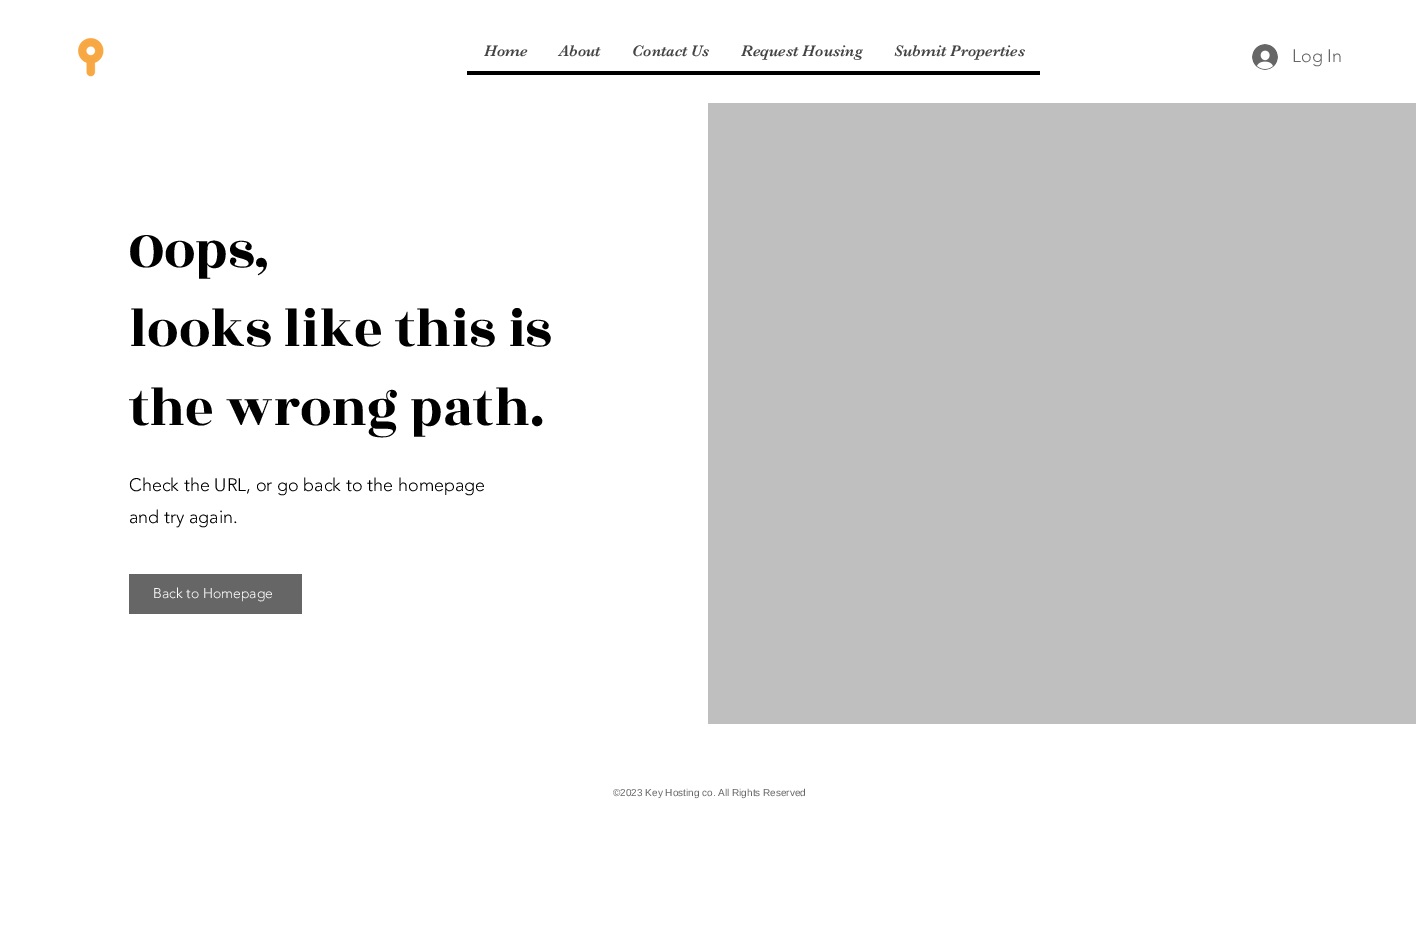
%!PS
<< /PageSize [1416 934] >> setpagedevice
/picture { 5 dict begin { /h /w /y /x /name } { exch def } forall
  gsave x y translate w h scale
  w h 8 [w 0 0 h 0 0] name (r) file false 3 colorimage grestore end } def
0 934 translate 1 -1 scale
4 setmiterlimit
1 setgray
0 0 1416 934 rectfill
(img1.rgb) 78 37 26 40 picture
0 setgray
467 71 573 4 rectfill
/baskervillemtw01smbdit-Regular [16 0 0 -16 0 0] selectfont
0.267 setgray
484 56 moveto (Home) show
559 56 moveto (About) show
632 56 moveto (Contact Us) show
741 56 moveto (Request Housing) show
894 56 moveto (Submit Properties) show
(img2.rgb) 1252 44 26 26 picture
/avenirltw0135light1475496-Light [18 0 0 -18 0 0] selectfont
0.4 setgray
1292 62 moveto (Log In) show
/RozhaOne-Regular [56 0 0 -56 0 0] selectfont
0 setgray
129 267 moveto (Oops,) show
129 346 moveto (looks like this is) show
129 425 moveto (the wrong path.) show
/avenirltw0135light1475496-Light [18 0 0 -18 0 0] selectfont
129 491 moveto (Check the URL, or go back to the homepage) show
129 523 moveto (and try again.) show
0.4 setgray
129 574 173 40 rectfill
/avenirltw0135light1475496-Light [14 0 0 -14 0 0] selectfont
1 setgray
153 598 moveto (Back to Homepage) show
0.749 setgray
708 103 708 621 rectfill
/LiberationSans-Regular [10 0 0 -10 0 0] selectfont
0.4 setgray
613 796 moveto (©2023 Key Hosting co. All Rights Reserved) show
showpage
